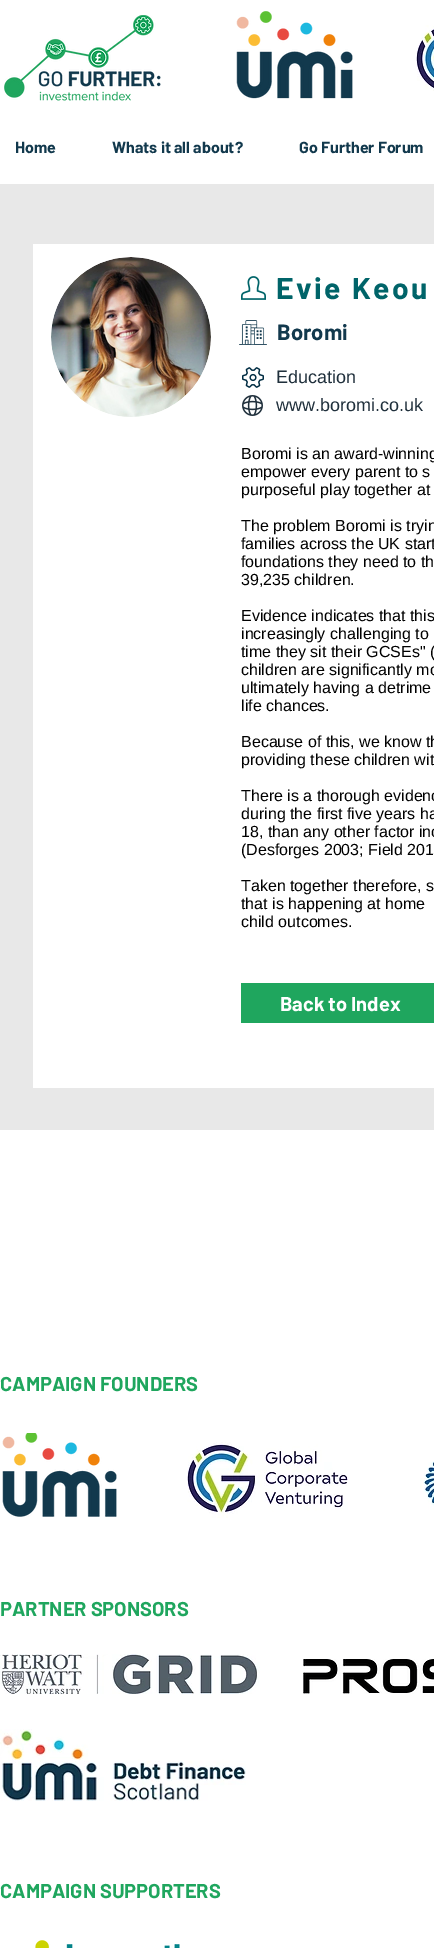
%!PS
<< /PageSize [434 1948] >> setpagedevice
/picture { 5 dict begin { /h /w /y /x /name } { exch def } forall
  gsave x y translate w h scale
  w h 8 [w 0 0 h 0 0] name (r) file false 3 colorimage grestore end } def
0 1948 translate 1 -1 scale
4 setmiterlimit
1 setgray
0 0 434 1948 rectfill
(img1.rgb) 4 15 157 86 picture
(img2.rgb) 236 11 117 88 picture
(img3.rgb) 416 25 18 66 picture
/Barlow-Bold [16 0 0 -16 0 0] selectfont
0.071 0.224 0.302 setrgbcolor
15 153 moveto (Home) show
112 153 moveto (Whats it all about?) show
299 153 moveto (Go Further Forum) show
0.91 setgray
0 184 434 946 rectfill
1 setgray
33 244 401 844 rectfill
(img4.rgb) 51 257 160 160 picture
(img5.rgb) 241 276 25 24 picture
/Barlow-Bold [30 0 0 -30 0 0] selectfont
0 0.392 0.412 setrgbcolor
276 299 moveto 2.5 0 (Evie Keou) ashow
(img6.rgb) 239 320 28 25 picture
/Barlow-Bold [22 0 0 -22 0 0] selectfont
0.071 0.224 0.302 setrgbcolor
277 340 moveto (Boromi) show
(img7.rgb) 242 367 22 21 picture
/LiberationSans-Regular [18 0 0 -18 0 0] selectfont
0.125 0.188 0.235 setrgbcolor
276 383 moveto (Education) show
(img8.rgb) 242 395 21 21 picture
276 411 moveto (www.boromi.co.uk) show
/LiberationSans-Regular [16 0 0 -16 0 0] selectfont
0 setgray
241 459 moveto (Boromi is an award-winning) show
241 477 moveto (empower every parent to s) show
241 495 moveto (purposeful play together at) show
241 531 moveto (The problem Boromi is tryin) show
241 549 moveto (families across the UK start) show
241 567 moveto (foundations they need to th) show
241 585 moveto (39,235 children.) show
241 621 moveto (Evidence indicates that this) show
241 639 moveto (increasingly challenging to) show
241 657 moveto (time they sit their GCSEs" \() show
241 675 moveto (children are significantly mo) show
241 693 moveto (ultimately having a detrime) show
241 711 moveto (life chances.) show
241 747 moveto (Because of this, we know th) show
241 765 moveto (providing these children wit) show
241 801 moveto (There is a thorough evidenc) show
241 819 moveto (during the first five years ha) show
241 837 moveto (18, than any other factor inc) show
241 855 moveto (\(Desforges 2003; Field 201) show
241 891 moveto (Taken together therefore, s) show
241 909 moveto (that is happening at home) show
241 927 moveto (child outcomes.) show
0.122 0.651 0.369 setrgbcolor
241 983 193 40 rectfill
/Barlow-Bold [20 0 0 -20 0 0] selectfont
1 setgray
280 1011 moveto (Back to Index) show
0.122 0.651 0.369 setrgbcolor
0 1391 moveto (CAMPAIGN FOUNDERS) show
(img9.rgb) 2 1433 115 84 picture
(img10.rgb) 187 1442 161 76 picture
(img11.rgb) 420 1461 14 49 picture
0 1616 moveto (PARTNER SPONSORS) show
(img12.rgb) 0 1654 260 40 picture
(img13.rgb) 303 1659 131 35 picture
(img14.rgb) 0 1729 246 72 picture
0 1898 moveto (CAMPAIGN SUPPORTERS) show
(img15.rgb) 35 1940 145 8 picture
showpage
